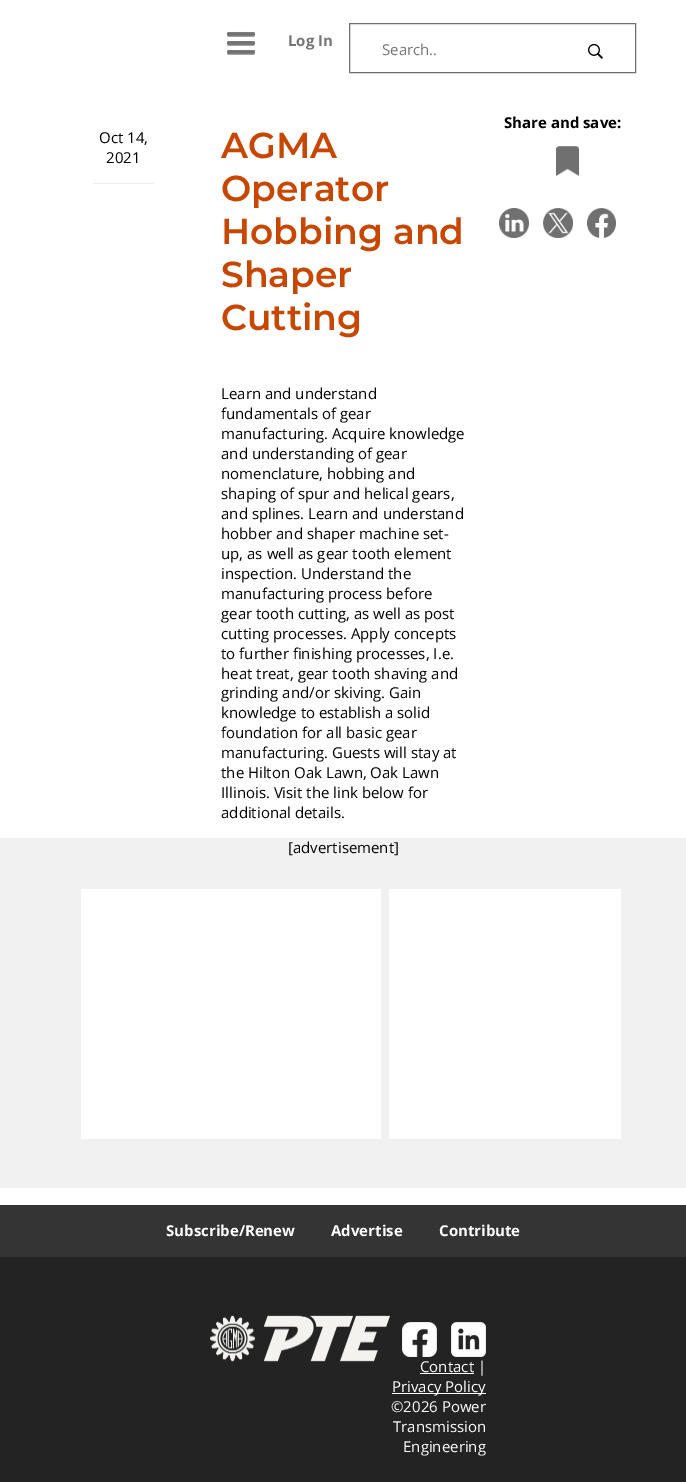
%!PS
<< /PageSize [686 1482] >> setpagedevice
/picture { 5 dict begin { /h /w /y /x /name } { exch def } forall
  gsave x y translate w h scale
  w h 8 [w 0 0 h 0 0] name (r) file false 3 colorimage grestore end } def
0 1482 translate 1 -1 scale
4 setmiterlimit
1 setgray
0 0 686 1482 rectfill
(img1.rgb) 226 31 30 24 picture
/OpenSans-Bold [15 0 0 -15 0 0] selectfont
0.459 setgray
288 46 moveto (Log In) show
0.439 setgray
349.5 23.5 286 49 rectstroke
/OpenSans-Regular [15 0 0 -15 0 0] selectfont
0.459 setgray
382 55 moveto (Search..) show
(img2.rgb) 588 44 15 15 picture
/OpenSans-Bold [15 0 0 -15 0 0] selectfont
0 setgray
504 128 moveto (Share and save:) show
(img3.rgb) 556 146 23 30 picture
(img4.rgb) 499 208 30 30 picture
(img5.rgb) 543 208 30 30 picture
(img6.rgb) 587 208 29 30 picture
/OpenSans-Regular [15 0 0 -15 0 0] selectfont
99 143 moveto (Oct 14,) show
106 163 moveto (2021) show
0.933 setgray
93 183 61 1 rectfill
/Montserrat-SemiBold [36 0 0 -36 0 0] selectfont
0.78 0.275 0 setrgbcolor
221 158 moveto (AGMA) show
221 201 moveto (Operator) show
221 244 moveto (Hobbing and) show
221 287 moveto (Shaper) show
221 330 moveto (Cutting) show
/OpenSans-Regular [15 0 0 -15 0 0] selectfont
0 setgray
221 399 moveto (Learn and understand) show
221 419 moveto (fundamentals of gear) show
221 439 moveto (manufacturing. Acquire knowledge) show
221 459 moveto (and understanding of gear) show
221 479 moveto (nomenclature, hobbing and) show
221 499 moveto (shaping of spur and helical gears,) show
221 519 moveto (and splines. Learn and understand) show
221 539 moveto (hobber and shaper machine set-) show
221 559 moveto (up, as well as gear tooth element) show
221 579 moveto (inspection. Understand the) show
221 599 moveto (manufacturing process before) show
221 619 moveto (gear tooth cutting, as well as post) show
221 639 moveto (cutting processes. Apply concepts) show
221 659 moveto (to further finishing processes, I.e.) show
221 679 moveto (heat treat, gear tooth shaving and) show
221 698 moveto (grinding and/or skiving. Gain) show
221 718 moveto (knowledge to establish a solid) show
221 738 moveto (foundation for all basic gear) show
221 758 moveto (manufacturing. Guests will stay at) show
221 778 moveto (the Hilton Oak Lawn, Oak Lawn) show
221 798 moveto (Illinois. Visit the link below for) show
221 818 moveto (additional details.) show
0.945 setgray
0 838 686 350 rectfill
0 setgray
288 853 moveto ([advertisement]) show
1 setgray
81 889 300 250 rectfill
389 889 232 250 rectfill
0.204 setgray
0 1205 686 52 rectfill
/OpenSans-Bold [15 0 0 -15 0 0] selectfont
1 setgray
166 1236 moveto (Subscribe/Renew) show
331 1236 moveto (Advertise) show
439 1236 moveto (Contribute) show
0.137 setgray
0 1257 686 225 rectfill
(img7.rgb) 210 1315 180 47 picture
(img8.rgb) 402 1322 35 35 picture
(img9.rgb) 451 1322 35 35 picture
1 setgray
420 1373 54 1 rectfill
/OpenSans-Regular [15 0 0 -15 0 0] selectfont
420 1372 moveto (Contact |) show
392 1393 94 1 rectfill
392 1392 moveto (Privacy Policy) show
391 1412 moveto (©2026 Power) show
393 1432 moveto (Transmission) show
403 1452 moveto (Engineering) show
showpage
